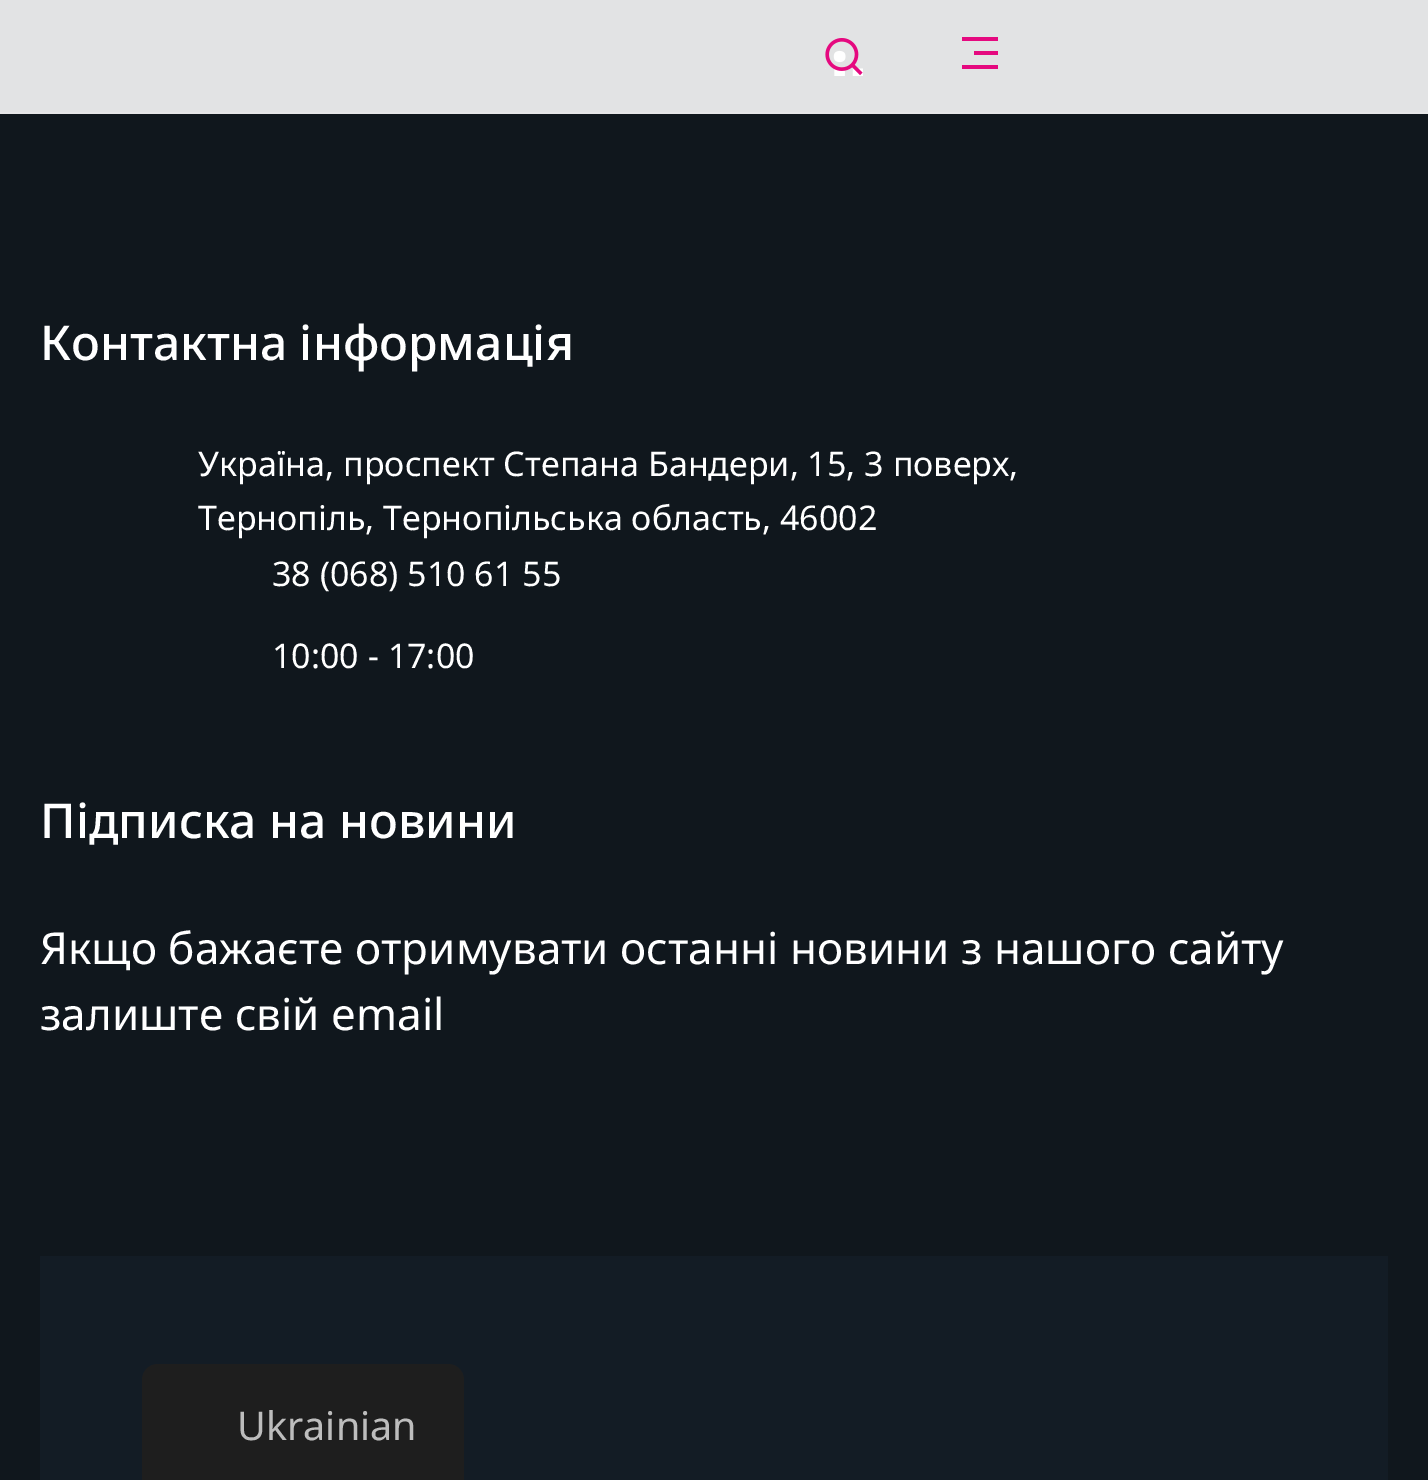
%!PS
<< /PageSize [1428 1480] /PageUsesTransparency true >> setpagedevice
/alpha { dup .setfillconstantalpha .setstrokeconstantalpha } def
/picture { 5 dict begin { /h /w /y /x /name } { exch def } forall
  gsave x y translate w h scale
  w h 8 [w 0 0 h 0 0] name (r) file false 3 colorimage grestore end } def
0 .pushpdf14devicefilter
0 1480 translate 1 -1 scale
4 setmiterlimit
0.063 0.09 0.114 setrgbcolor
0 0 1428 1480 rectfill
0.88 alpha
1 setgray
0 0 1428 114 rectfill
0.12 alpha
0 112 1428 2 rectfill
1 alpha
(img1.rgb) 825 38 38 38 picture
0.898 0.035 0.498 setrgbcolor
newpath 962 37 moveto 998 37 lineto 998 41 lineto 962 41 lineto closepath 974 51 moveto 998 51 lineto 998 55 lineto 974 55 lineto closepath 962 65 moveto 998 65 lineto 998 69 lineto 962 69 lineto closepath fill
/NotoSans-Medium [48 0 0 -48 0 0] selectfont
1 setgray
40 360 moveto (Контактна інформація) show
/NotoSans-Regular [34 0 0 -34 0 0] selectfont
198 476 moveto (Україна, проспект Степана Бандери, 15, 3 поверх,) show
198 530 moveto (Тернопіль, Тернопільська область, 46002) show
272 586 moveto (38 \(068\) 510 61 55) show
272 668 moveto (10:00 - 17:00) show
/NotoSans-Medium [48 0 0 -48 0 0] selectfont
40 838 moveto (Підписка на новини) show
/NotoSans-Regular [44 0 0 -44 0 0] selectfont
40 964 moveto (Якщо бажаєте отримувати останні новини з нашого сайту) show
40 1030 moveto (залиште свій email) show
0.075 0.11 0.145 setrgbcolor
40 1256 1348 224 rectfill
0.118 setgray
newpath 158 1364 moveto 448 1364 lineto 457 1364 464 1371 464 1380 curveto 464 1480 lineto 142 1480 lineto 142 1380 lineto 142 1371 149 1364 158 1364 curveto closepath fill
/NotoSans-Regular [39.5 0 0 -39.5 0 0] selectfont
0.741 setgray
237 1440 moveto (Ukrainian) show
.poppdf14devicefilter showpage
